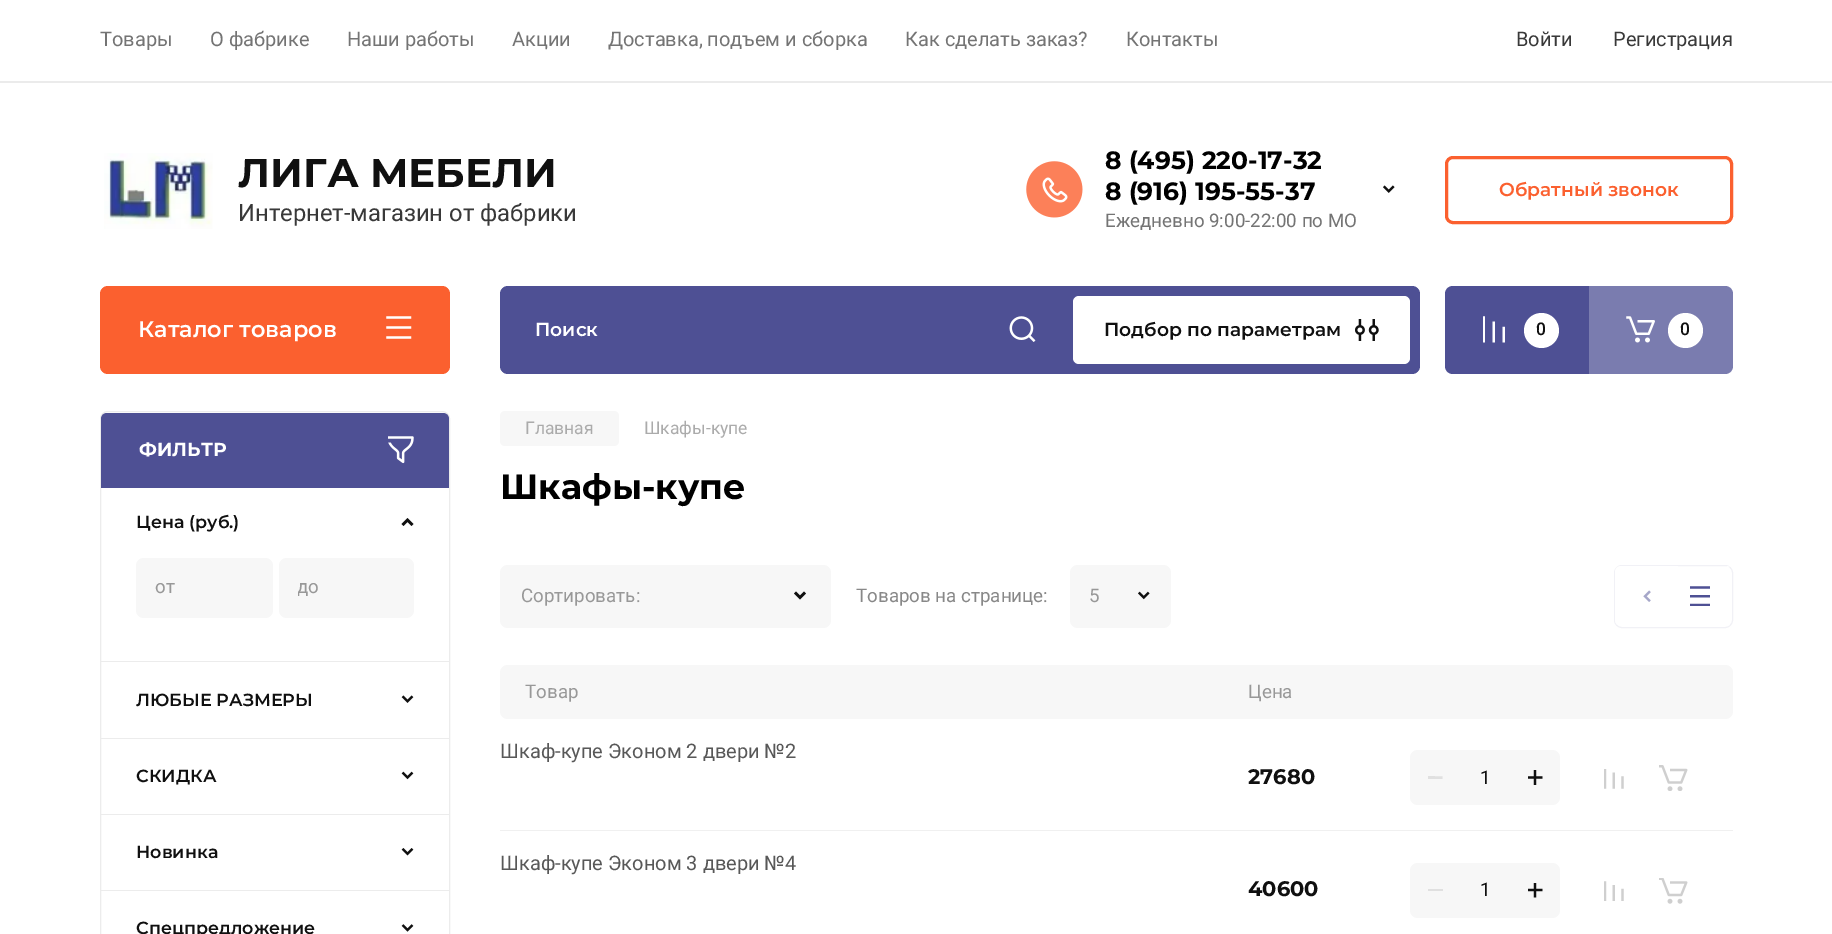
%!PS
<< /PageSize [1832 934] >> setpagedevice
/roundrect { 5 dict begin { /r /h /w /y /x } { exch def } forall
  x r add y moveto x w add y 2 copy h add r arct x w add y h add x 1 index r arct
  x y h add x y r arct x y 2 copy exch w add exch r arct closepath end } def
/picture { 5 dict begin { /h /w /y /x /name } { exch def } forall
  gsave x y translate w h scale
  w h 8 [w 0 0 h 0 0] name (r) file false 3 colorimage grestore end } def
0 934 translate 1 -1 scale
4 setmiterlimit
1 setgray
0 0 1832 934 rectfill
0.922 setgray
newpath 0 81 moveto 0 83 lineto 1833 83 lineto 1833 1 lineto 1832 1 lineto 1832 81 lineto closepath fill
/Roboto-Regular [20 0 0 -20 0 0] selectfont
0.455 setgray
100 46 moveto (Товары) show
210 46 moveto (О фабрике) show
347 46 moveto (Наши работы) show
512 46 moveto (Акции) show
608 46 moveto (Доставка, подъем и сборка) show
905 46 moveto (Как сделать заказ?) show
1126 46 moveto (Контакты) show
0.224 setgray
1516 46 moveto (Войти) show
1613 46 moveto (Регистрация) show
(img1.rgb) 104 153 109 76 picture
/Montserrat-Bold [40 0 0 -40 0 0] selectfont
0.063 setgray
238 187 moveto (ЛИГА МЕБЕЛИ) show
/Roboto-Regular [23.75 0 0 -23.75 0 0] selectfont
0.224 setgray
238 221 moveto (Интернет-магазин от фабрики) show
(img2.rgb) 1026 161 57 57 picture
/Montserrat-Bold [25 0 0 -25 0 0] selectfont
0 setgray
1105 169 moveto (8 \(495\) 220-17-32) show
1105 200 moveto (8 \(916\) 195-55-37) show
/Roboto-Regular [18.75 0 0 -18.75 0 0] selectfont
0.455 setgray
1105 227 moveto (Ежедневно 9:00-22:00 по МО) show
(img3.rgb) 1383 185 12 8 picture
0.984 0.376 0.184 setrgbcolor
3 setlinewidth
1446.5 157.5 285 65 6.5 roundrect stroke
/Montserrat-SemiBold [18.75 0 0 -18.75 0 0] selectfont
1499 196 moveto (Обратный звонок) show
100 286 350 88 8 roundrect fill
/Montserrat-SemiBold [22.5 0 0 -22.5 0 0] selectfont
1 setgray
138 337 moveto (Каталог товаров) show
(img4.rgb) 386 316 26 23 picture
0.306 0.314 0.58 setrgbcolor
500 286 920 88 8 roundrect fill
/Montserrat-SemiBold [18.75 0 0 -18.75 0 0] selectfont
1 setgray
535 336 moveto (Поиск) show
(img5.rgb) 1009 316 27 26 picture
1073 296 337 68 6 roundrect fill
0.063 setgray
1104 336 moveto (Подбор по параметрам) show
(img6.rgb) 1355 319 24 22 picture
0.306 0.314 0.58 setrgbcolor
newpath 1453 286 moveto 1589 286 lineto 1589 374 lineto 1453 374 lineto 1448.5 374 1445 370.5 1445 366 curveto 1445 294 lineto 1445 289.5 1448.5 286 1453 286 curveto closepath fill
(img7.rgb) 1483 316 22 27 picture
1 setgray
newpath 1541.5 330.5 17.5 0 360 arc closepath fill
/Roboto-Medium [17.5 0 0 -17.5 0 0] selectfont
0.063 setgray
1536 335 moveto (0) show
0.478 0.486 0.686 setrgbcolor
newpath 1589 286 moveto 1725 286 lineto 1729.5 286 1733 289.5 1733 294 curveto 1733 366 lineto 1733 370.5 1729.5 374 1725 374 curveto 1589 374 lineto closepath fill
(img8.rgb) 1626 316 29 27 picture
1 setgray
newpath 1685.5 330.5 17.5 0 360 arc closepath fill
0.063 setgray
1680 335 moveto (0) show
0.925 setgray
1 setlinewidth
100.5 411.5 349 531 7.5 roundrect stroke
0.306 0.314 0.58 setrgbcolor
newpath 107 413 moveto 443 413 lineto 446.5 413 449 415.5 449 419 curveto 449 488 lineto 101 488 lineto 101 419 lineto 101 415.5 103.5 413 107 413 curveto closepath fill
/Montserrat-Bold [18.75 0 0 -18.75 0 0] selectfont
1 setgray
139 456 moveto (ФИЛЬТР) show
(img9.rgb) 388 436 26 28 picture
0.925 setgray
101 661 348 1 rectfill
/Montserrat-SemiBold [17.5 0 0 -17.5 0 0] selectfont
0.063 setgray
136 528 moveto (Цена \(руб.\)) show
2.5 setlinewidth
newpath 412.5 525 moveto 407.5 520 lineto 402.5 525 lineto stroke
0.969 setgray
136 558 137 60 8 roundrect fill
/Roboto-Regular [18.75 0 0 -18.75 0 0] selectfont
0.596 setgray
155 593 moveto (от) show
0.969 setgray
279 558 135 60 8 roundrect fill
gsave
298 576 97 23 rectclip
0.596 setgray
297 593 moveto (до) show
grestore
0.925 setgray
101 738 348 1 rectfill
/Montserrat-SemiBold [17.5 0 0 -17.5 0 0] selectfont
0.063 setgray
136 706 moveto (ЛЮБЫЕ РАЗМЕРЫ) show
(img10.rgb) 401 695 13 8 picture
0.925 setgray
101 814 348 1 rectfill
0.063 setgray
136 782 moveto (СКИДКА) show
(img11.rgb) 401 771 13 9 picture
0.925 setgray
101 890 348 1 rectfill
0.063 setgray
136 858 moveto (Новинка) show
(img12.rgb) 401 848 13 8 picture
136 934 moveto (Спецпредложение) show
(img13.rgb) 401 924 13 8 picture
0.969 setgray
500 411 119 35 5 roundrect fill
/Roboto-Regular [17.5 0 0 -17.5 0 0] selectfont
0.671 setgray
525 434 moveto (Главная) show
644 434 moveto (Шкафы-купе) show
/Montserrat-Bold [35 0 0 -35 0 0] selectfont
0 setgray
500 499 moveto (Шкафы-купе) show
0.969 setgray
500 565 331 63 8 roundrect fill
/Roboto-Regular [18.75 0 0 -18.75 0 0] selectfont
0.596 setgray
521 602 moveto (Сортировать:) show
0.063 setgray
newpath 805 592.5 moveto 800 597.5 lineto 795 592.5 lineto stroke
0.533 setgray
856 602 moveto (Товаров на странице:) show
0.969 setgray
1070 565 101 63 8 roundrect fill
(img14.rgb) 1138 591 12 9 picture
0.596 setgray
1089 602 moveto (5) show
0.945 0.945 0.965 setrgbcolor
1 setlinewidth
1614.5 565.5 118 62 7.5 roundrect stroke
1 setgray
newpath 1621 566 moveto 1678 566 lineto 1678 626 lineto 1621 626 lineto 1617.5 626 1615 623.5 1615 620 curveto 1615 572 lineto 1615 568.5 1617.5 566 1621 566 curveto closepath fill
(img15.rgb) 1643 590 8 12 picture
(img16.rgb) 1690 586 20 20 picture
newpath 1731 566 moveto 1725 566 lineto 1728.5 566 1731 568.5 1731 572 curveto 1731 620 lineto 1731 623.5 1728.5 626 1725 626 curveto 1731 626 lineto 1726.5 626 1723 622.5 1723 618 curveto 1723 574 lineto 1723 569.5 1726.5 566 1731 566 curveto closepath fill
0.969 setgray
500 665 1233 54 8 roundrect fill
0.596 setgray
525 698 moveto (Товар) show
1248 698 moveto (Цена) show
0.941 setgray
500 830 1233 1 rectfill
/Roboto-Regular [20 0 0 -20 0 0] selectfont
0.345 setgray
500 758 moveto (Шкаф-купе Эконом 2 двери №2) show
/Montserrat-Bold [21 0 0 -21 0 0] selectfont
0.063 setgray
1248 784 moveto (27680) show
0.969 setgray
1410 750 150 55 8 roundrect fill
gsave
1428 776 15 3 rectclip
0.878 setgray
newpath 1442.5 779 moveto 1427.5 779 lineto 1427.5 776 lineto 1442.5 776.5 lineto closepath fill
grestore
/Roboto-Regular [18.75 0 0 -18.75 0 0] selectfont
0.063 setgray
1480 784 moveto (1) show
(img17.rgb) 1528 770 15 15 picture
(img18.rgb) 1604 769 20 20 picture
(img19.rgb) 1659 765 29 26 picture
/Roboto-Regular [20 0 0 -20 0 0] selectfont
0.345 setgray
500 870 moveto (Шкаф-купе Эконом 3 двери №4) show
/Montserrat-Bold [21 0 0 -21 0 0] selectfont
0.063 setgray
1248 896 moveto (40600) show
0.969 setgray
1410 863 150 55 8 roundrect fill
0.878 setgray
1428 889 15 2 rectfill
/Roboto-Regular [18.75 0 0 -18.75 0 0] selectfont
0.063 setgray
1480 896 moveto (1) show
(img20.rgb) 1528 883 15 15 picture
(img21.rgb) 1604 881 20 20 picture
(img22.rgb) 1659 878 29 26 picture
showpage
